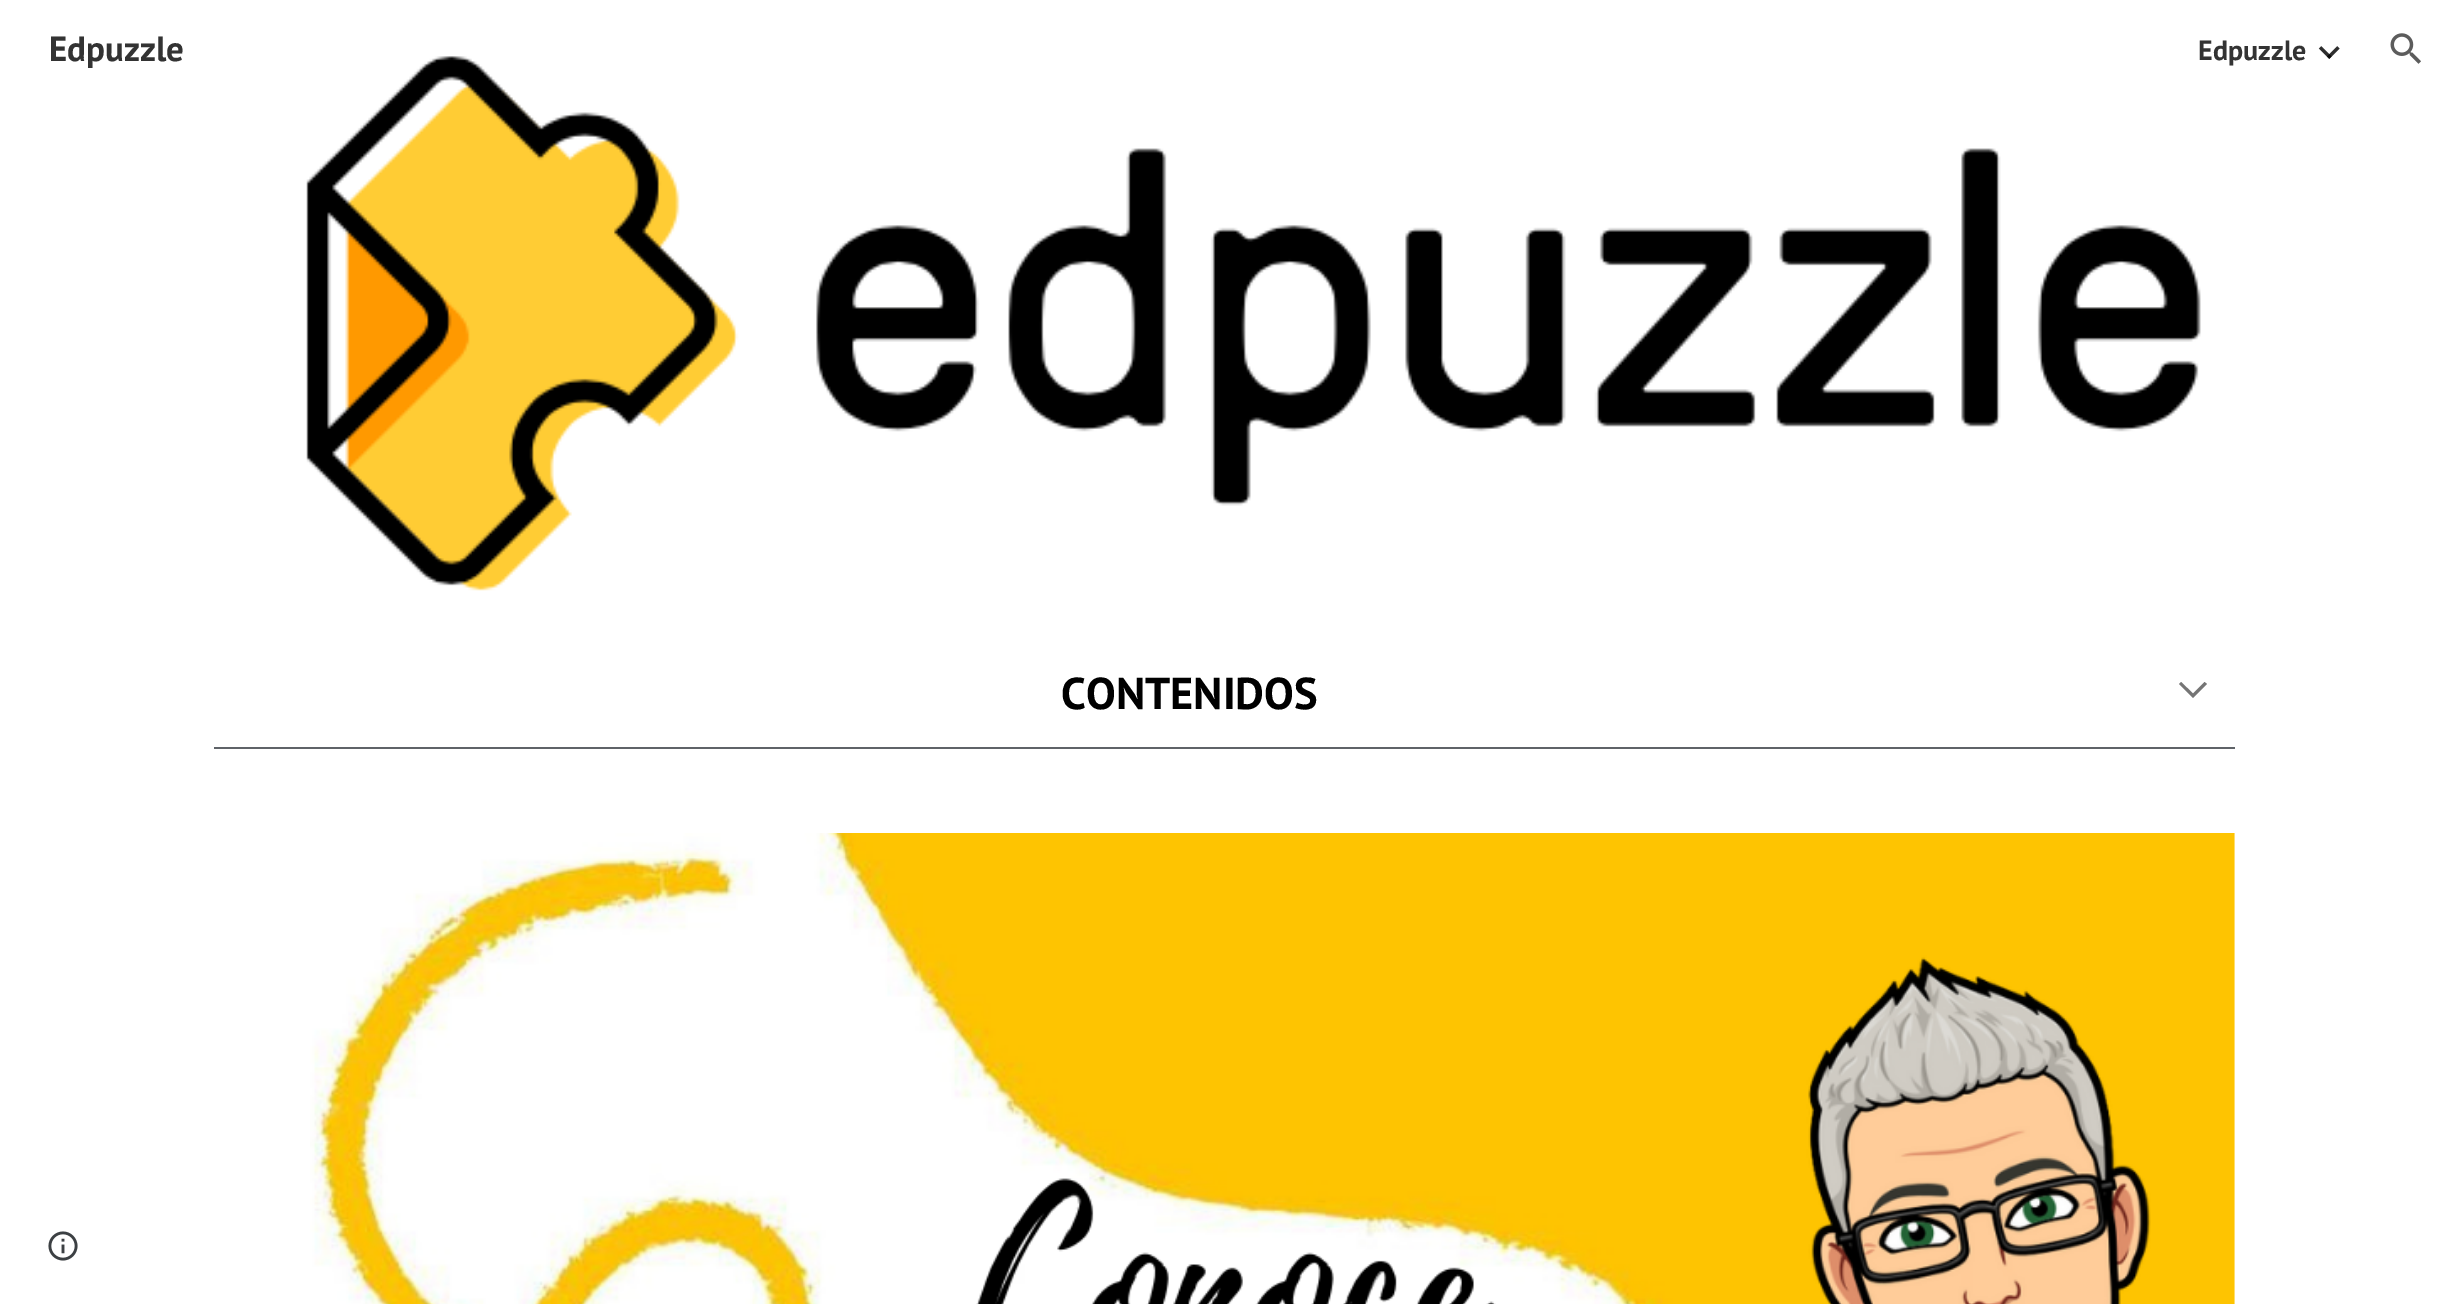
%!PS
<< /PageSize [2447 1304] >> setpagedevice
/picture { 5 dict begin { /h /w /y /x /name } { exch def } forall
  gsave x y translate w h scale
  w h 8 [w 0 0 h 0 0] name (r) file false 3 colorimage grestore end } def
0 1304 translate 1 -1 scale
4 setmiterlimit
1 setgray
0 0 2447 1304 rectfill
/PTSans-Bold [35 0 0 -35 0 0] selectfont
0.2 setgray
49 61 moveto (Edpuzzle) show
(img3.rgb) 306 56 1895 535 picture
/PTSans-Bold [28 0 0 -28 0 0] selectfont
2198 60 moveto (Edpuzzle) show
(img1.rgb) 2318 46 22 13 picture
(img2.rgb) 2390 33 31 31 picture
0.373 0.388 0.408 setrgbcolor
214 747 2021 2 rectfill
/PTSans-Bold [44.5 0 0 -44.5 0 0] selectfont
0 setgray
1061 709 moveto (CONTENIDOS) show
0.459 setgray
newpath 2181 682 moveto 2179 684 lineto 2193 698 lineto 2207 684 lineto 2204.5 682 lineto 2193 693.5 lineto fill
(img4.rgb) 310 833 1925 471 picture
(img5.rgb) 48 1231 30 30 picture
showpage
